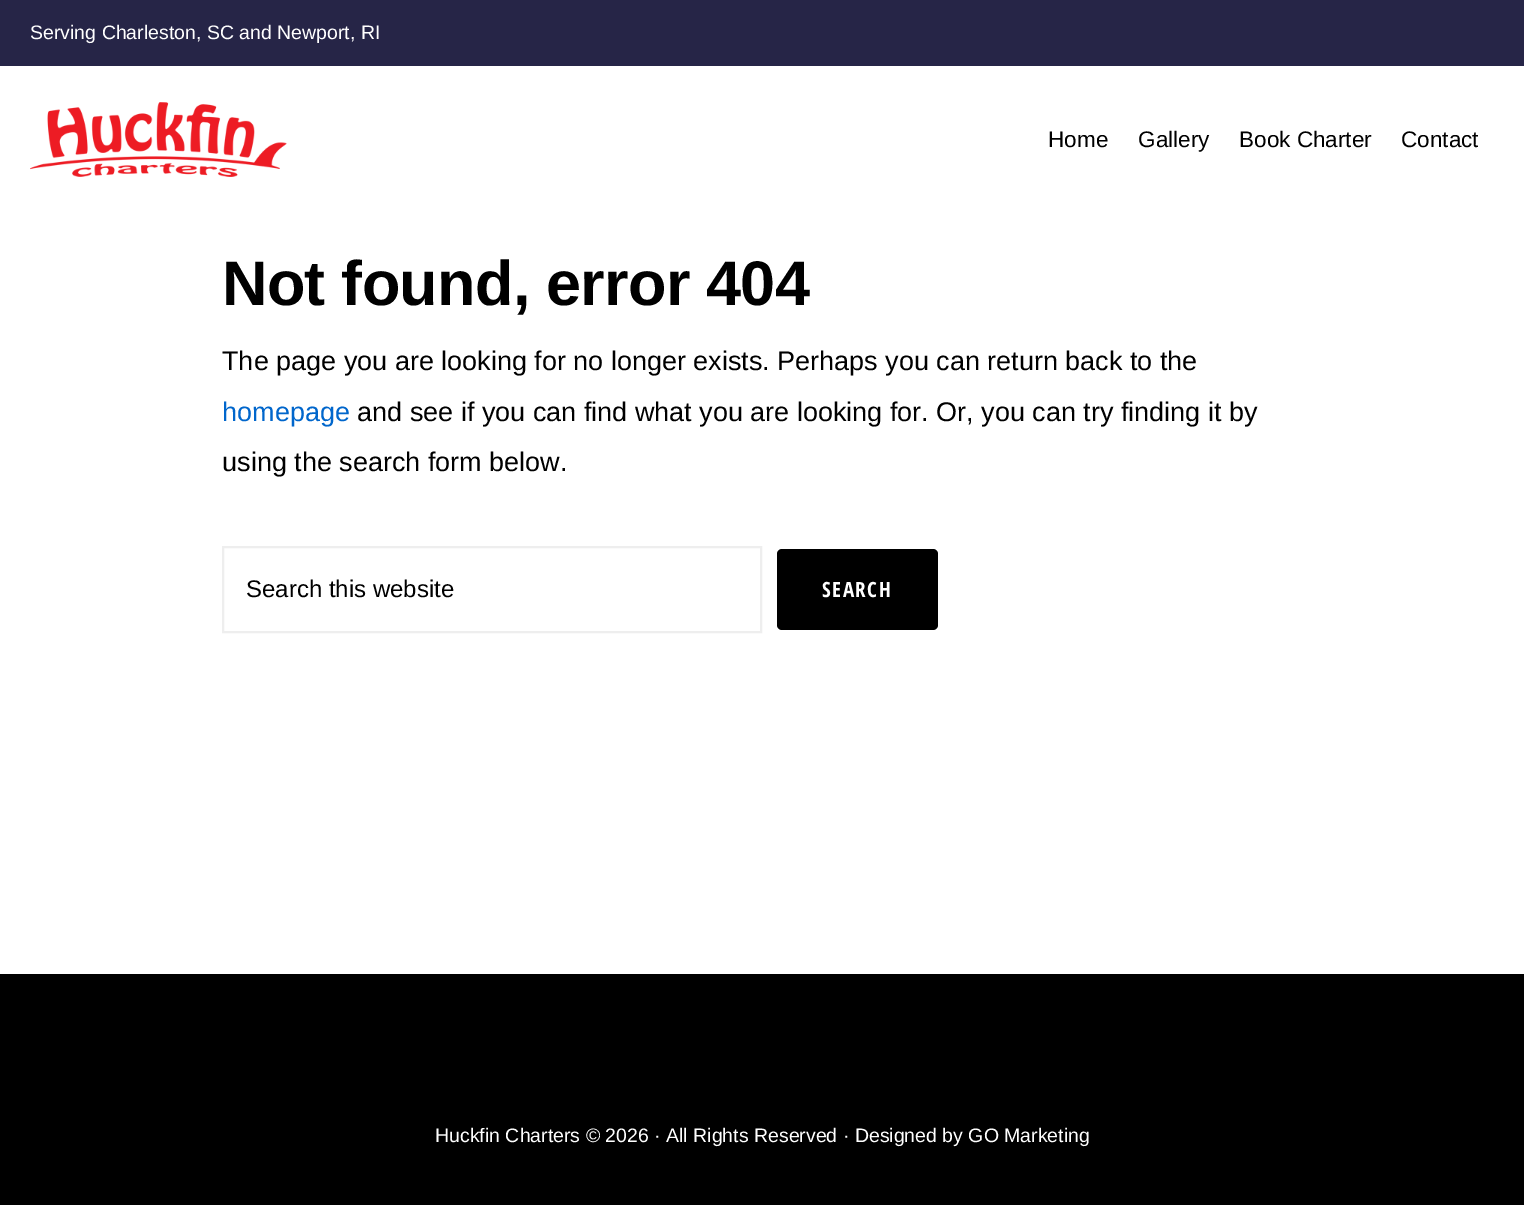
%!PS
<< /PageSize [1524 1205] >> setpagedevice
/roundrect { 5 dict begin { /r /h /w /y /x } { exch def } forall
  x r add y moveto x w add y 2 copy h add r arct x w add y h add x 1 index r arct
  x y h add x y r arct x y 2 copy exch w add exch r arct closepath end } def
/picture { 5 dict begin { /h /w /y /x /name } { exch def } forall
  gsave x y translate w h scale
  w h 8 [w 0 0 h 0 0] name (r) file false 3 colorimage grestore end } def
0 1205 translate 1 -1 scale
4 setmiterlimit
1 setgray
0 0 1524 1205 rectfill
0.149 0.145 0.278 setrgbcolor
0 0 1524 66 rectfill
/LiberationSans-Regular [19.5 0 0 -19.5 0 0] selectfont
1 setgray
30 39 moveto (Serving Charleston, SC and Newport, RI) show
(img1.rgb) 30 102 257 75 picture
/LiberationSans-Regular [22.5 0 0 -22.5 0 0] selectfont
0 setgray
1048 147 moveto (Home) show
1138 147 moveto (Gallery) show
1239 147 moveto (Book Charter) show
1401 147 moveto (Contact) show
/LiberationSans-Bold [63 0 0 -63 0 0] selectfont
222 305 moveto -0.75 0 (Not found, error 404) ashow
/LiberationSans-Regular [27 0 0 -27 0 0] selectfont
222 370 moveto (The page you are looking for no longer exists. Perhaps you can return back to the) show
0 0.4 0.8 setrgbcolor
222 421 moveto (homepage) show
0 setgray
357 421 moveto (and see if you can find what you are looking for. Or, you can try finding it by) show
222 471 moveto (using the search form below.) show
0.933 setgray
2 setlinewidth
223 547 538 85 rectstroke
/LiberationSans-Regular [24 0 0 -24 0 0] selectfont
0 setgray
246 597 moveto (Search this website) show
777 549 161 81 5 roundrect fill
/OpenSansCondensed-Bold [21 0 0 -21 0 0] selectfont
1 setgray
822 597 moveto 1.5 0 (SEARCH) ashow
0 setgray
0 974 1524 231 rectfill
/LiberationSans-Regular [19.5 0 0 -19.5 0 0] selectfont
1 setgray
435 1142 moveto (Huckfin Charters © 2026 · All Rights Reserved · Designed by GO Marketing) show
showpage
